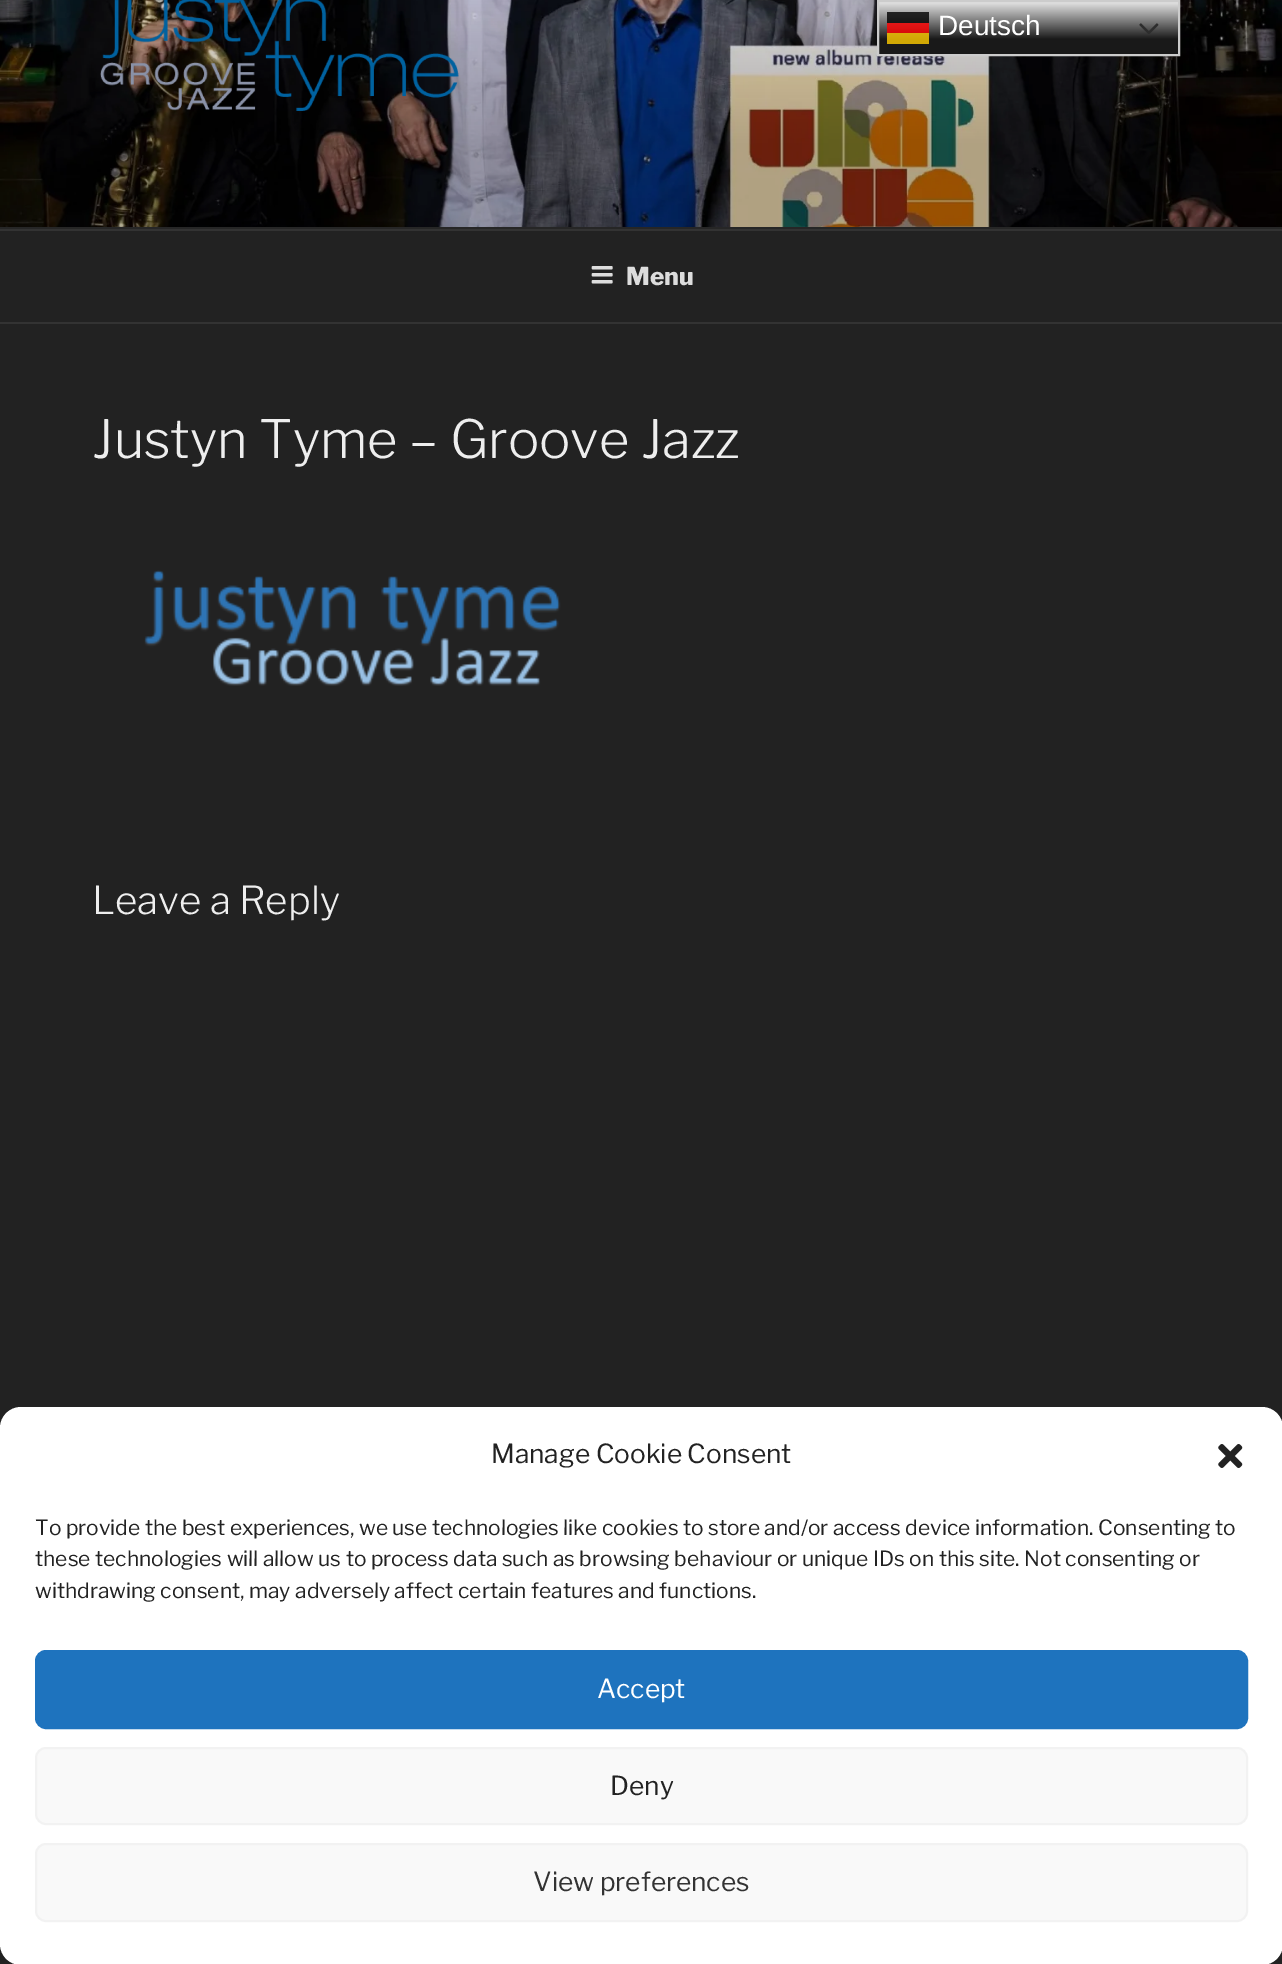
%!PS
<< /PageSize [1282 1964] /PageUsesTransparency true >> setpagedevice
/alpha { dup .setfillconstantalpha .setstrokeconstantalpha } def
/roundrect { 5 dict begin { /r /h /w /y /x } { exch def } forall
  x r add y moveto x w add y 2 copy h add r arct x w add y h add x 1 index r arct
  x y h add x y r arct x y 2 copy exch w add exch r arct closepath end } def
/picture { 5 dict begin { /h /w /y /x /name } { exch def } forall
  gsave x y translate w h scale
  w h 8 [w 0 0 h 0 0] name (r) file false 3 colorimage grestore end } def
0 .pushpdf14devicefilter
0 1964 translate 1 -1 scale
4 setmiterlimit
0.133 setgray
0 0 1282 1964 rectfill
(img2.rgb) 0 0 1282 227 picture
gsave newpath 879 2 moveto 1178 2 lineto 1178 54 lineto 879 54 lineto closepath clip newpath
<< /ShadingType 2 /ColorSpace /DeviceRGB /Coords [1028 0 1028 56] /Extend [true true] /Function << /FunctionType 3 /Domain [0 1] /Functions [<< /FunctionType 2 /Domain [0 1] /C0 [0.937 0.937 0.937] /C1 [0.098 0.098 0.098] /N 1 >> << /FunctionType 2 /Domain [0 1] /C0 [0.098 0.098 0.098] /C1 [0.098 0.098 0.098] /N 1 >>] /Bounds [0.7] /Encode [0 1 0 1] >> >> shfill grestore
0.8 setgray
2 setlinewidth
878 1 301 54 rectstroke
0.8 alpha
0 setgray
887 12 42 11 rectfill
/LiberationSans-Regular [28 0 0 -28 0 0] selectfont
1 alpha
1 setgray
938 35 moveto (Deutsch) show
0.8 alpha
1 0 0 setrgbcolor
887 23 42 10 rectfill
1 alpha
(img1.rgb) 1139 23 20 11 picture
0.8 alpha
1 0.8 0 setrgbcolor
887 33 42 11 rectfill
1 alpha
0.149 setgray
0 227 1282 2 rectfill
(img3.rgb) 100 0 359 111 picture
0.2 setgray
0 229 1282 2 rectfill
0 322 1282 2 rectfill
(img4.rgb) 591 266 22 18 picture
/LibreFranklin-ExtraBold [24.5 0 0 -24.5 0 0] selectfont
0.867 setgray
626 285 moveto (Menu) show
/LibreFranklin-Light [52.5 0 0 -52.5 0 0] selectfont
0.933 setgray
92 458 moveto (Justyn Tyme – Groove Jazz) show
(img5.rgb) 144 570 417 116 picture
/LibreFranklin-Light [38.5 0 0 -38.5 0 0] selectfont
92 914 moveto (Leave a Reply) show
1 setgray
0 1407 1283 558 21 roundrect fill
/LibreFranklin-Regular [26.25 0 0 -26.25 0 0] selectfont
0.133 setgray
491 1463 moveto (Manage Cookie Consent) show
(img6.rgb) 1218 1444 25 24 picture
/LibreFranklin-Regular [21 0 0 -21 0 0] selectfont
35 1535 moveto (To provide the best experiences, we use technologies like cookies to store and/or access device information. Consenting to) show
35 1566 moveto (these technologies will allow us to process data such as browsing behaviour or unique IDs on this site. Not consenting or) show
35 1598 moveto (withdrawing consent, may adversely affect certain features and functions.) show
0.118 0.451 0.745 setrgbcolor
36 1651 1211 77 10 roundrect gsave fill grestore
stroke
/LibreFranklin-Regular [26.25 0 0 -26.25 0 0] selectfont
1 setgray
597 1698 moveto (Accept) show
0.976 setgray
36 1748 1211 76 10 roundrect gsave fill grestore
0.949 setgray
stroke
0.133 setgray
610 1795 moveto (Deny) show
0.976 setgray
36 1844 1211 77 10 roundrect gsave fill grestore
0.949 setgray
stroke
0.2 setgray
533 1891 moveto (View preferences) show
.poppdf14devicefilter showpage
